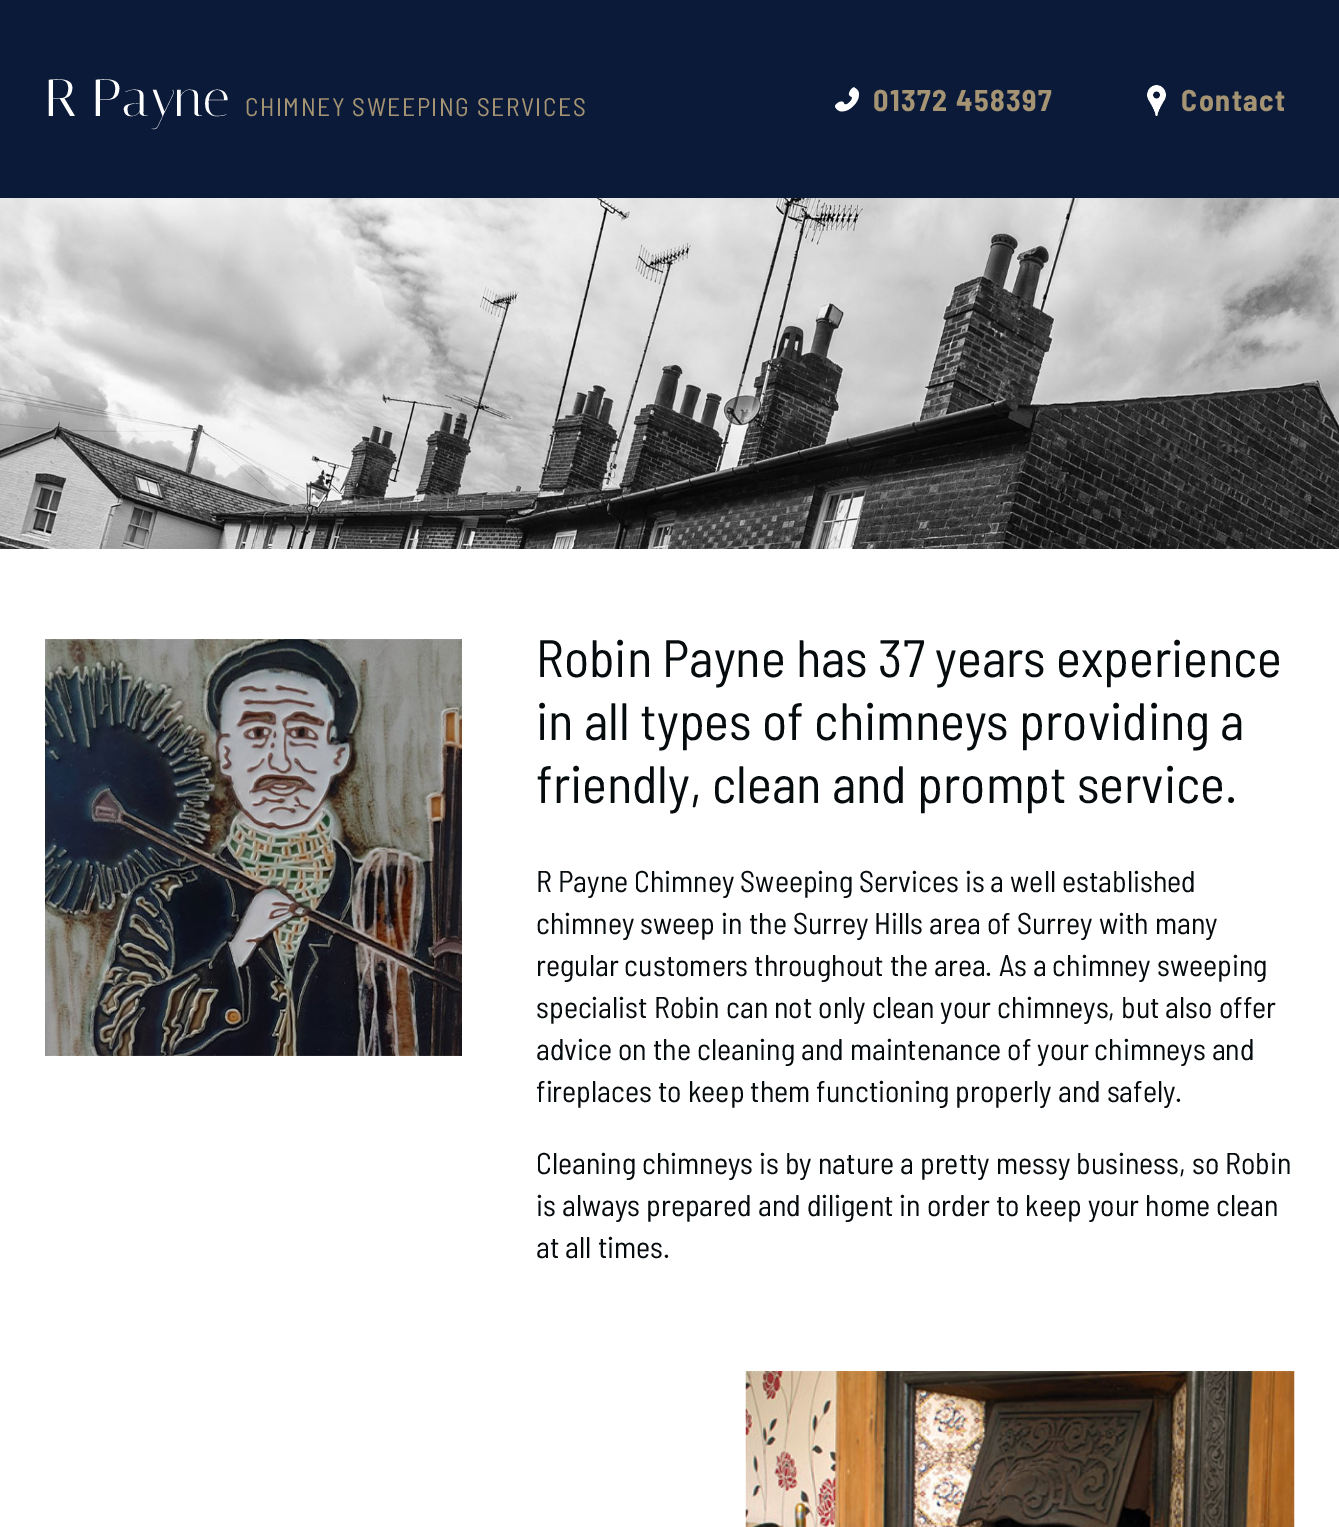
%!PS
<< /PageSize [1339 1527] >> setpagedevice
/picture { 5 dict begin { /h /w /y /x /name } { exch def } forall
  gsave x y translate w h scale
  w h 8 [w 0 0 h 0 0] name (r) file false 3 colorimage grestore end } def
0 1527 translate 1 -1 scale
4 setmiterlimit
1 setgray
0 0 1339 1527 rectfill
0.043 0.102 0.22 setrgbcolor
0 0 1339 198 rectfill
/Italiana-Regular [52.5 0 0 -52.5 0 0] selectfont
1 setgray
45 116 moveto (R Payne) show
/BarlowSemiCondensed-Regular [25.5 0 0 -25.5 0 0] selectfont
0.647 0.58 0.451 setrgbcolor
245 116 moveto 1.5 0 (CHIMNEY SWEEPING SERVICES) ashow
(img1.rgb) 835 87 24 25 picture
/BarlowSemiCondensed-Bold [30 0 0 -30 0 0] selectfont
873 111 moveto 1.5 0 (01372 458397) ashow
(img2.rgb) 1147 85 19 31 picture
1181 111 moveto 1.5 0 (Contact) ashow
(img3.rgb) 0 198 1339 351 picture
(img4.rgb) 45 639 417 417 picture
/BarlowSemiCondensed-Regular [52.5 0 0 -52.5 0 0] selectfont
0.024 0.043 0.055 setrgbcolor
536 677 moveto (Robin Payne has 37 years experience) show
536 740 moveto (in all types of chimneys providing a) show
536 803 moveto (friendly, clean and prompt service.) show
/BarlowSemiCondensed-Regular [30 0 0 -30 0 0] selectfont
536 892 moveto (R Payne Chimney Sweeping Services is a well established) show
536 934 moveto (chimney sweep in the Surrey Hills area of Surrey with many) show
536 976 moveto (regular customers throughout the area. As a chimney sweeping) show
536 1018 moveto (specialist Robin can not only clean your chimneys, but also offer) show
536 1060 moveto (advice on the cleaning and maintenance of your chimneys and) show
536 1102 moveto (fireplaces to keep them functioning properly and safely.) show
536 1174 moveto (Cleaning chimneys is by nature a pretty messy business, so Robin) show
536 1216 moveto (is always prepared and diligent in order to keep your home clean) show
536 1258 moveto (at all times.) show
(img5.rgb) 745 1371 550 156 picture
showpage
